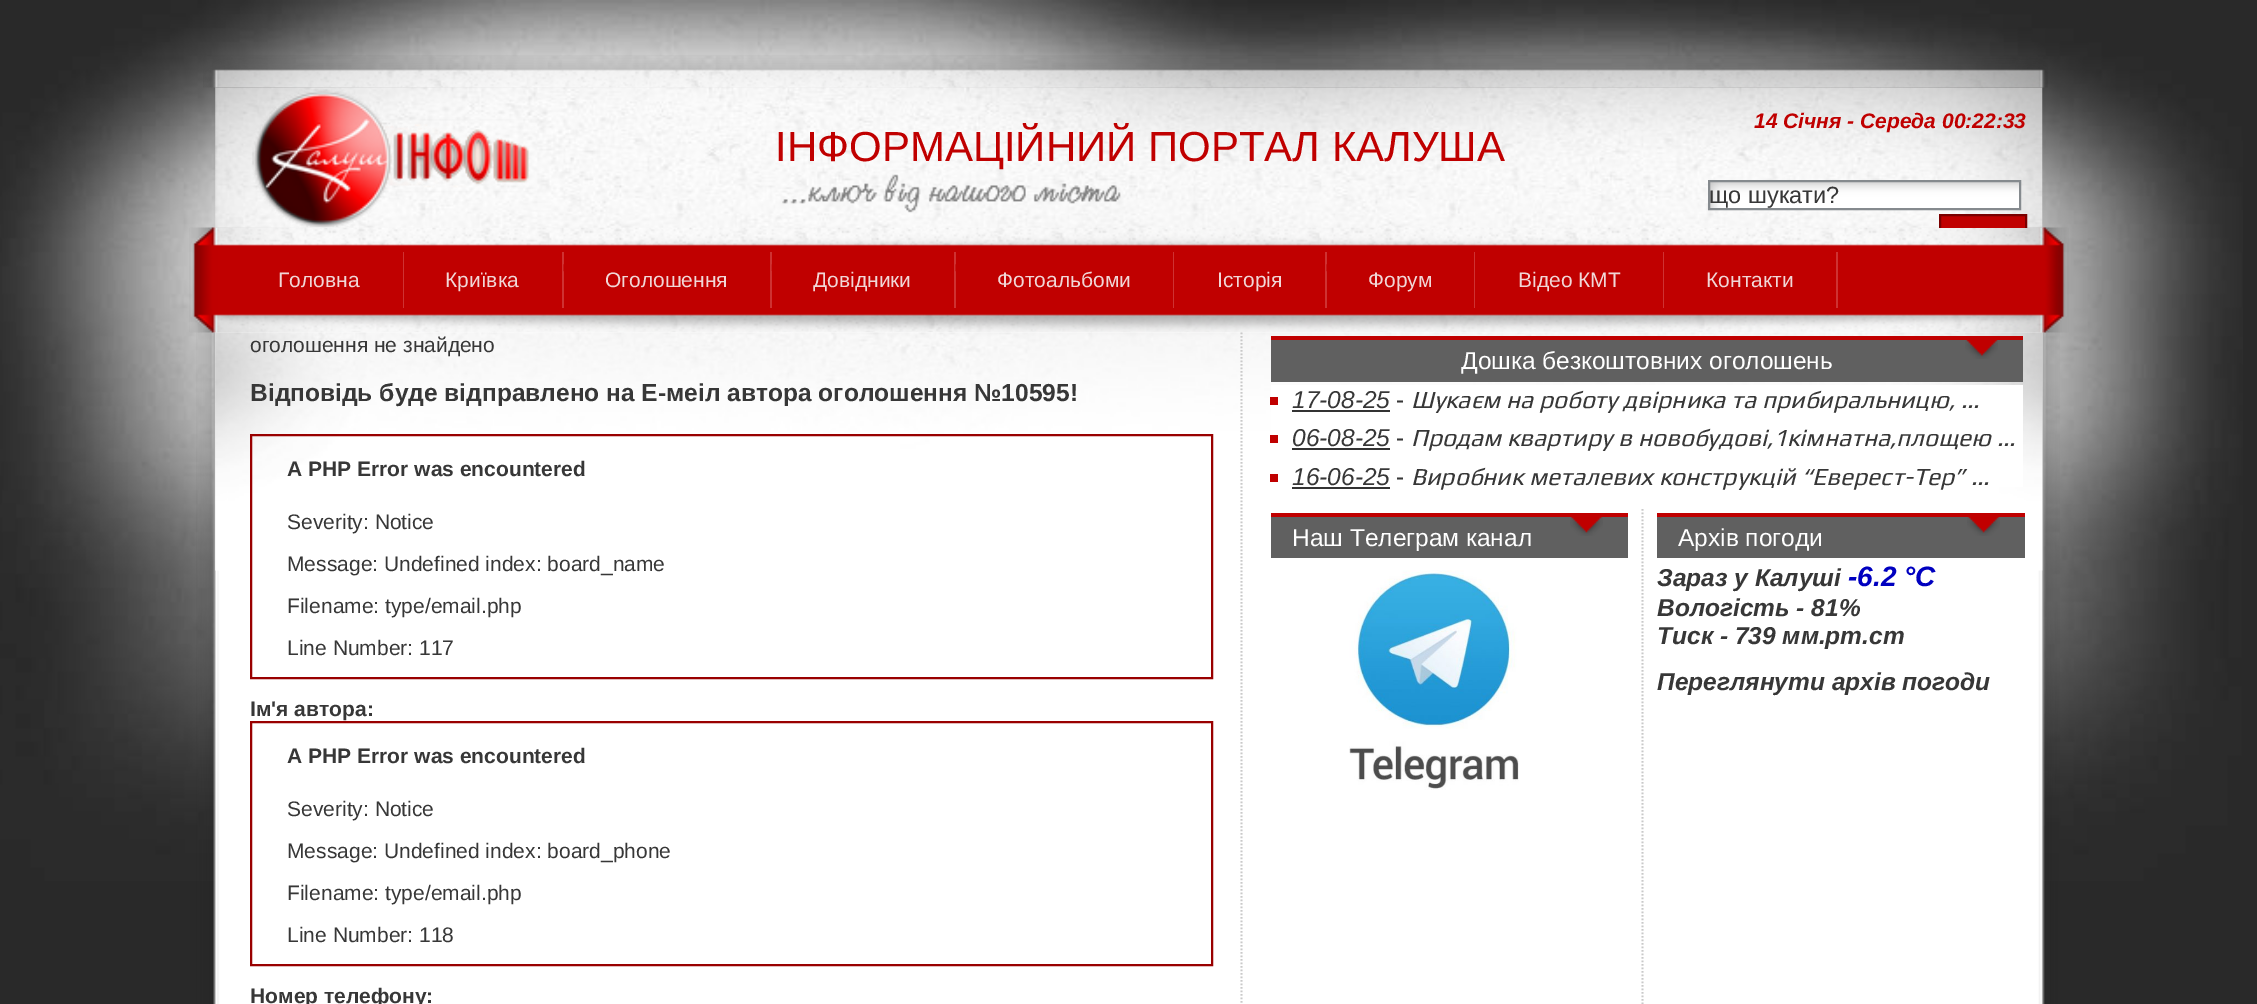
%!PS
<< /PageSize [2257 1004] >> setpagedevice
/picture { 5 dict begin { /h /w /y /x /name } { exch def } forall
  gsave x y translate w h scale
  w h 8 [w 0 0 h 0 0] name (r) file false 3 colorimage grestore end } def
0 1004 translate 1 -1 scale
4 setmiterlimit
0.161 setgray
0 0 2257 1004 rectfill
(img1.rgb) 0 0 2243 881 picture
(img2.rgb) 203 55 1845 33 picture
(img7.rgb) 189 227 1880 106 picture
(img3.rgb) 215 87 1828 141 picture
(img4.rgb) 252 88 277 140 picture
/LiberationSans-Regular [42 0 0 -42 0 0] selectfont
0.753 0 0 setrgbcolor
775 161 moveto (ІНФОРМАЦІЙНИЙ ПОРТАЛ КАЛУША) show
(img5.rgb) 782 174 339 39 picture
/LiberationSans-BoldItalic [21 0 0 -21 0 0] selectfont
1754 128 moveto (14 Січня - Середа 00:22:33) show
(img6.rgb) 1710 182 312 28 picture
0.522 0.541 0.557 setrgbcolor
2 setlinewidth
1709 181 311 28 rectstroke
/LiberationSans-Regular [23.5 0 0 -23.5 0 0] selectfont
0.216 setgray
1709 203 moveto (що шукати?) show
0.753 0 0 setrgbcolor
1941 216 84 12 rectfill
gsave
215 88 1847 140 rectclip
0.478 0 0 setrgbcolor
1940 215 86 33 rectstroke
grestore
0.808 0.196 0.196 setrgbcolor
403 252 1 56 rectfill
/LiberationSans-Regular [21 0 0 -21 0 0] selectfont
0.945 0.843 0.843 setrgbcolor
278 287 moveto (Головна) show
0.808 0.196 0.196 setrgbcolor
562 252 2 56 rectfill
0.945 0.843 0.843 setrgbcolor
445 287 moveto (Криївка) show
(img8.rgb) 563 264 1 8 picture
0.808 0.196 0.196 setrgbcolor
770 252 2 56 rectfill
0.945 0.843 0.843 setrgbcolor
605 287 moveto (Оголошення) show
(img9.rgb) 771 264 1 7 picture
0.808 0.196 0.196 setrgbcolor
954 252 2 56 rectfill
0.945 0.843 0.843 setrgbcolor
813 287 moveto (Довідники) show
(img8.rgb) 955 264 1 8 picture
0.808 0.196 0.196 setrgbcolor
1173 252 1 56 rectfill
0.945 0.843 0.843 setrgbcolor
997 287 moveto (Фотоальбоми) show
0.808 0.196 0.196 setrgbcolor
1325 252 2 56 rectfill
0.945 0.843 0.843 setrgbcolor
1217 287 moveto (Історія) show
(img8.rgb) 1326 264 1 8 picture
0.808 0.196 0.196 setrgbcolor
1474 252 1 56 rectfill
0.945 0.843 0.843 setrgbcolor
1368 287 moveto (Форум) show
0.808 0.196 0.196 setrgbcolor
1663 252 1 56 rectfill
0.945 0.843 0.843 setrgbcolor
1518 287 moveto (Відео КМТ) show
0.808 0.196 0.196 setrgbcolor
1836 252 2 56 rectfill
0.945 0.843 0.843 setrgbcolor
1706 287 moveto (Контакти) show
(img10.rgb) 196 332 1864 672 picture
(img11.rgb) 215 332 1828 239 picture
0.788 setgray
1.8 setlinewidth
[1.75 1.75] 0 setdash
newpath 1241.5 332.5 moveto 1241.5 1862 lineto stroke
0.216 setgray
250 352 moveto (оголошення не знайдено) show
/LiberationSans-Bold [24.55 0 0 -24.55 0 0] selectfont
250 401 moveto (Відповідь буде відправлено на Е-меіл автора оголошення №10595!) show
0.6 0 0 setrgbcolor
2 setlinewidth
[] 0 setdash
251 435 961 243 rectstroke
/LiberationSans-Bold [21 0 0 -21 0 0] selectfont
0.216 setgray
287 476 moveto (A PHP Error was encountered) show
/LiberationSans-Regular [21 0 0 -21 0 0] selectfont
287 529 moveto (Severity: Notice) show
287 571 moveto (Message: Undefined index: board_name) show
287 613 moveto (Filename: type/email.php) show
287 655 moveto (Line Number: 117) show
/LiberationSans-Bold [21 0 0 -21 0 0] selectfont
250 716 moveto (Ім'я автора:) show
0.6 0 0 setrgbcolor
251 722 961 243 rectstroke
0.216 setgray
287 763 moveto (A PHP Error was encountered) show
/LiberationSans-Regular [21 0 0 -21 0 0] selectfont
287 816 moveto (Severity: Notice) show
287 858 moveto (Message: Undefined index: board_phone) show
287 900 moveto (Filename: type/email.php) show
287 942 moveto (Line Number: 118) show
/LiberationSans-Bold [21 0 0 -21 0 0] selectfont
250 1003 moveto (Номер телефону:) show
0.376 setgray
1271 340 752 42 rectfill
(img12.rgb) 1965 340 33 19 picture
0.753 0 0 setrgbcolor
1271 336 752 4 rectfill
/LiberationSans-Regular [24.5 0 0 -24.5 0 0] selectfont
1 setgray
1461 369 moveto (Дошка безкоштовних оголошень) show
1271 385 752 102 rectfill
0.753 0 0 setrgbcolor
1270 397 8 8 rectfill
/LiberationSans-Italic [24.5 0 0 -24.5 0 0] selectfont
0.216 setgray
1292 408 moveto (17-08-25) show
0.2 setgray
1292 410 98 2 rectfill
/LiberationSans-Regular [24.5 0 0 -24.5 0 0] selectfont
0.216 setgray
1396 408 moveto (-) show
/Play-Italic [24.5 0 0 -24.5 0 0] selectfont
1411 408 moveto (Шукаєм на роботу двірника та прибиральницю, ...) show
0.753 0 0 setrgbcolor
1270 435 8 8 rectfill
/LiberationSans-Italic [24.5 0 0 -24.5 0 0] selectfont
0.216 setgray
1292 446 moveto (06-08-25) show
0.2 setgray
1292 448 98 2 rectfill
/LiberationSans-Regular [24.5 0 0 -24.5 0 0] selectfont
0.216 setgray
1396 446 moveto (-) show
/Play-Italic [24.5 0 0 -24.5 0 0] selectfont
1411 446 moveto (Продам квартиру в новобудові,1кімнатна,площею ...) show
0.753 0 0 setrgbcolor
1270 474 8 8 rectfill
/LiberationSans-Italic [24.5 0 0 -24.5 0 0] selectfont
0.216 setgray
1292 485 moveto (16-06-25) show
0.2 setgray
1292 487 98 2 rectfill
/LiberationSans-Regular [24.5 0 0 -24.5 0 0] selectfont
0.216 setgray
1396 485 moveto (-) show
/Play-Italic [24.5 0 0 -24.5 0 0] selectfont
1411 485 moveto (Виробник металевих конструкцій “Еверест-Тер” ...) show
0.788 setgray
1.8 setlinewidth
[1.75 1.75] 0 setdash
newpath 1642.5 509 moveto 1642.5 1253 lineto stroke
0.376 setgray
1271 517 357 41 rectfill
(img13.rgb) 1570 517 33 19 picture
0.753 0 0 setrgbcolor
1271 513 357 4 rectfill
/LiberationSans-Regular [24.5 0 0 -24.5 0 0] selectfont
1 setgray
1292 546 moveto (Наш Телеграм канал) show
(img14.rgb) 1349 570 170 220 picture
0.376 setgray
1657 517 368 41 rectfill
(img15.rgb) 1967 517 33 19 picture
0.753 0 0 setrgbcolor
1657 513 368 4 rectfill
1 setgray
1678 546 moveto (Архів погоди) show
/LiberationSans-BoldItalic [24.5 0 0 -24.5 0 0] selectfont
0.216 setgray
1657 586 moveto (Зараз у Калуші) show
/LiberationSans-BoldItalic [28 0 0 -28 0 0] selectfont
0 0 0.753 setrgbcolor
1848 586 moveto (-6.2 °C) show
/LiberationSans-BoldItalic [24.5 0 0 -24.5 0 0] selectfont
0.216 setgray
1657 616 moveto (Вологість - 81%) show
1657 644 moveto (Тиск - 739 мм.рт.ст) show
1657 690 moveto (Переглянути архів погоди) show
showpage
